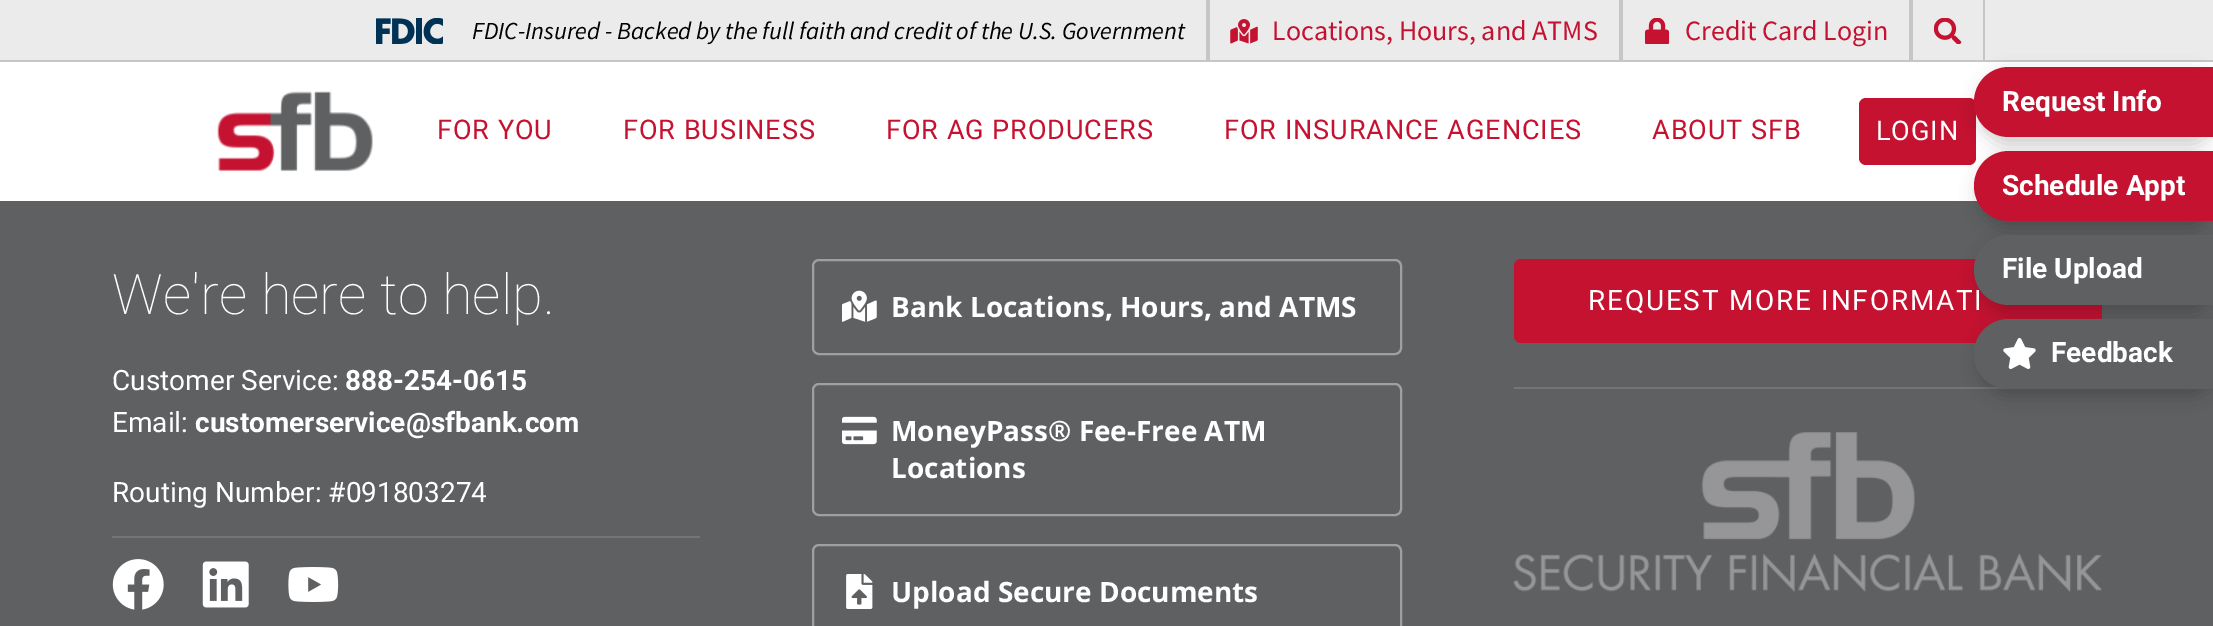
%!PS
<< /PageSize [2213 626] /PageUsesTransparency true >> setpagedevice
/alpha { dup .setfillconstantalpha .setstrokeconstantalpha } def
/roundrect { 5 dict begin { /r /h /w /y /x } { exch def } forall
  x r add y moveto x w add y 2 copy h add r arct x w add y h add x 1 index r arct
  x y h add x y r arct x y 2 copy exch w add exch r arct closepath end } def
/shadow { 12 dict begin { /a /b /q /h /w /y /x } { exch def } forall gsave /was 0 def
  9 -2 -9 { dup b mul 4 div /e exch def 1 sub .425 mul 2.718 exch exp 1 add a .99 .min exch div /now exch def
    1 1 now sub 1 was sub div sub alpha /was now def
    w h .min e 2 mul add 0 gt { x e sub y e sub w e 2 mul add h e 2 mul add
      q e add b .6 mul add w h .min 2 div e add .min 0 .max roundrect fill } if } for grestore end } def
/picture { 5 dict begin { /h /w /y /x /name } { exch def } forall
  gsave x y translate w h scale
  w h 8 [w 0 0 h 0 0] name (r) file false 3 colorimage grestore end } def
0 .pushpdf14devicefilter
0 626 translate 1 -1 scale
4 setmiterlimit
0.373 0.376 0.384 setrgbcolor
0 0 2213 626 rectfill
1 setgray
0 62 2213 139 rectfill
0.922 setgray
0 0 2213 60 rectfill
0.776 setgray
0 60 2213 2 rectfill
1206 0 4 61 rectfill
(img1.rgb) 376 18 67 26 picture
/SourceSansPro-Italic [24.5 0 0 -24.5 0 0] selectfont
0 setgray
472 39 moveto (FDIC-Insured - Backed by the full faith and credit of the U.S. Government) show
0.776 setgray
1619 0 4 61 rectfill
(img2.rgb) 1230 19 28 25 picture
/SourceSansPro-Regular [28 0 0 -28 0 0] selectfont
0.769 0.071 0.188 setrgbcolor
1272 40 moveto (Locations, Hours, and ATMS) show
0.776 setgray
1909 0 4 61 rectfill
(img3.rgb) 1644 18 26 26 picture
0.769 0.071 0.188 setrgbcolor
1685 40 moveto (Credit Card Login) show
0.776 setgray
1983 0 2 61 rectfill
(img4.rgb) 1934 18 28 26 picture
(img5.rgb) 217 91 156 81 picture
/Roboto-Regular [27.1 0 0 -27.1 0 0] selectfont
0.769 0.071 0.188 setrgbcolor
437 139 moveto 0.9 0 (FOR YOU) ashow
623 139 moveto 0.9 0 (FOR BUSINESS) ashow
886 139 moveto 0.9 0 (FOR AG PRODUCERS) ashow
1224 139 moveto 0.9 0 (FOR INSURANCE AGENCIES) ashow
1652 139 moveto 0.9 0 (ABOUT SFB) ashow
1859 98 117 67 7 roundrect fill
1 setgray
1876 140 moveto 0.9 0 (LOGIN) ashow
0 setgray
1979 74 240 70 35 9 0.2 shadow
0.769 0.071 0.188 setrgbcolor
newpath 2009 67 moveto 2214 67 lineto 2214 137 lineto 2009 137 lineto 1989.5 137 1974 121.5 1974 102 curveto 1974 82.5 1989.5 67 2009 67 curveto closepath fill
/Roboto-Bold [28 0 0 -28 0 0] selectfont
1 setgray
2002 111 moveto (Request Info) show
0 setgray
1979 158 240 70 35 9 0.2 shadow
0.769 0.071 0.188 setrgbcolor
newpath 2009 151 moveto 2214 151 lineto 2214 221 lineto 2009 221 lineto 1989.5 221 1974 205.5 1974 186 curveto 1974 166.5 1989.5 151 2009 151 curveto closepath fill
1 setgray
2002 195 moveto (Schedule Appt) show
0.769 0.071 0.188 setrgbcolor
1514 259 588 84 7 roundrect fill
0 setgray
1979 242 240 70 35 9 0.2 shadow
/Roboto-Regular [28 0 0 -28 0 0] selectfont
1 setgray
1588 310 moveto 1.75 0 (REQUEST MORE INFORMATI) ashow
0.373 0.376 0.384 setrgbcolor
newpath 2009 235 moveto 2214 235 lineto 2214 305 lineto 2009 305 lineto 1989.5 305 1974 289.5 1974 270 curveto 1974 250.5 1989.5 235 2009 235 curveto closepath fill
/Roboto-Bold [28 0 0 -28 0 0] selectfont
1 setgray
2002 278 moveto (File Upload) show
0.459 setgray
1514 387 495 2 rectfill
0 setgray
1979 326 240 70 35 9 0.2 shadow
0.373 0.376 0.384 setrgbcolor
newpath 2009 319 moveto 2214 319 lineto 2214 389 lineto 2009 389 lineto 1989.5 389 1974 373.5 1974 354 curveto 1974 334.5 1989.5 319 2009 319 curveto closepath fill
(img6.rgb) 2003 338 33 31 picture
1 setgray
2051 362 moveto (Feedback) show
/Roboto-Thin [56 0 0 -56 0 0] selectfont
112 314 moveto (We're here to help.) show
/Roboto-Regular [28 0 0 -28 0 0] selectfont
112 390 moveto (Customer Service:) show
/Roboto-Bold [28 0 0 -28 0 0] selectfont
345 390 moveto (888-254-0615) show
/Roboto-Regular [28 0 0 -28 0 0] selectfont
112 432 moveto (Email:) show
/Roboto-Bold [28 0 0 -28 0 0] selectfont
195 432 moveto (customerservice@sfbank.com) show
/Roboto-Regular [28 0 0 -28 0 0] selectfont
112 502 moveto (Routing Number: #091803274) show
0.459 setgray
112 536 588 2 rectfill
(img7.rgb) 112 559 52 51 picture
(img8.rgb) 202 561 47 47 picture
(img9.rgb) 288 567 51 35 picture
0.624 0.627 0.631 setrgbcolor
2 setlinewidth
813 260 588 94 6 roundrect stroke
(img10.rgb) 842 290 35 32 picture
/OpenSans-Bold [28 0 0 -28 0 0] selectfont
1 setgray
891 317 moveto (Bank Locations, Hours, and ATMS) show
0.624 0.627 0.631 setrgbcolor
813 384 588 131 6 roundrect stroke
(img11.rgb) 842 416 35 29 picture
1 setgray
891 441 moveto (MoneyPass® Fee-Free ATM) show
891 478 moveto (Locations) show
0.624 0.627 0.631 setrgbcolor
813 545 588 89 6 roundrect stroke
(img12.rgb) 846 574 27 35 picture
1 setgray
891 602 moveto (Upload Secure Documents) show
(img13.rgb) 1513 432 589 160 picture
.poppdf14devicefilter showpage
